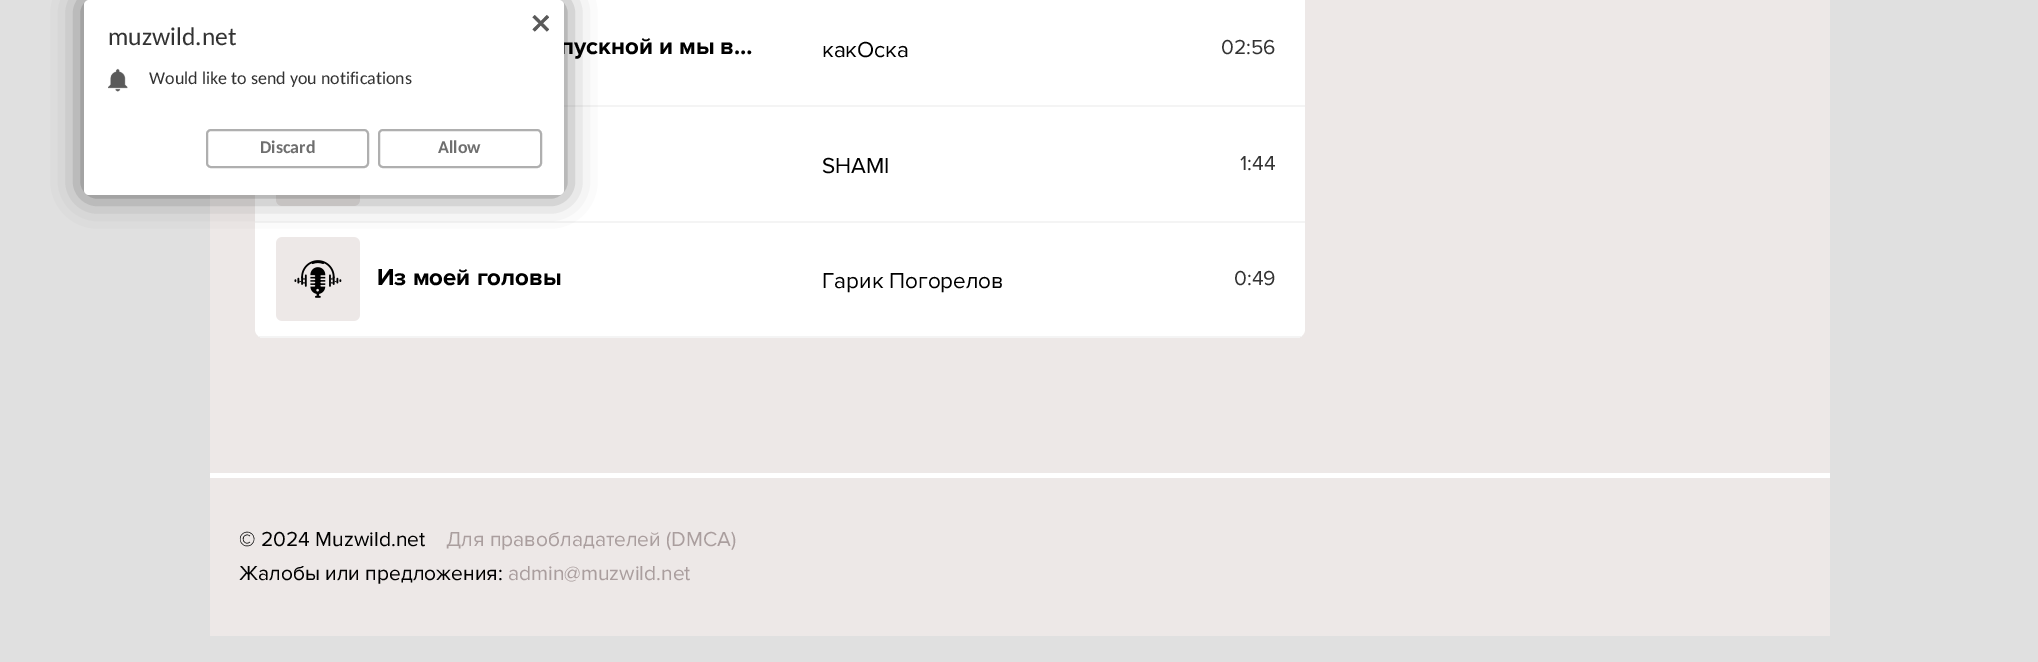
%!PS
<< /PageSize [2038 662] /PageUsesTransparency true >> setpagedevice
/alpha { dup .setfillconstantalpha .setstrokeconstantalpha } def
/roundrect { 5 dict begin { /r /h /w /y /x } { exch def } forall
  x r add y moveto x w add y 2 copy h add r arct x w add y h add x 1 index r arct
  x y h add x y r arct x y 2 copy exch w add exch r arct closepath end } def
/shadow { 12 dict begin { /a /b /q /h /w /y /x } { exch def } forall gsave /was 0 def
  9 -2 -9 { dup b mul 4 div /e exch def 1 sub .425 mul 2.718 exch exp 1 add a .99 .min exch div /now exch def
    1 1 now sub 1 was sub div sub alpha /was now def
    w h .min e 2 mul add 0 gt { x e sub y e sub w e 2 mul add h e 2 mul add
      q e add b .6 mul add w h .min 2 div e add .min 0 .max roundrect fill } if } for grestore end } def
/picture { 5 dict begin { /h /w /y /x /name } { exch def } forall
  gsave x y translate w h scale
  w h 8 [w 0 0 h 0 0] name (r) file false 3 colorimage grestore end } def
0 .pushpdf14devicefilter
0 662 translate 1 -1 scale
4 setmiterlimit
0.878 setgray
0 0 2038 662 rectfill
0.929 0.91 0.906 setrgbcolor
210 0 1620 473 rectfill
1 setgray
255 -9 1050 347 9 roundrect fill
0.957 setgray
564 105 741 2 rectfill
255 221 1050 2 rectfill
(img3.rgb) 276 195 84 11 picture
(img4.rgb) 276 237 84 84 picture
0 setgray
84 0 480 195 5 15 0.54 shadow
/ProximaNova-Bold [24 0 0 -24 0 0] selectfont
560 54 moveto (пускной и мы в…) show
1 setgray
84 0 480 195 5 roundrect fill
(img1.rgb) 532 15 17 17 picture
/Carlito-Regular [25.5 0 0 -25.5 0 0] selectfont
0.2 setgray
108 45 moveto (muzwild.net) show
(img2.rgb) 108 68 20 24 picture
/Carlito-Regular [18 0 0 -18 0 0] selectfont
149 84 moveto (Would like to send you notifications) show
0.686 setgray
2 setlinewidth
207 130 161 37 4 roundrect stroke
/Carlito-Bold [18 0 0 -18 0 0] selectfont
0.435 setgray
260 153 moveto (Discard) show
0.686 setgray
379 130 162 37 4 roundrect stroke
0.435 setgray
438 153 moveto (Allow) show
/ProximaNova-Regular [22.5 0 0 -22.5 0 0] selectfont
0 setgray
822 57 moveto (какОска) show
/ProximaNova-Regular [21 0 0 -21 0 0] selectfont
0.2 setgray
1221 54 moveto (02:56) show
/ProximaNova-Regular [22.5 0 0 -22.5 0 0] selectfont
0 setgray
822 173 moveto (SHAMI) show
/ProximaNova-Regular [21 0 0 -21 0 0] selectfont
0.2 setgray
1240 170 moveto (1:44) show
gsave
255 -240 1050 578 9 roundrect clip newpath
255 -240 1050 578 9 roundrect clip newpath
0.957 setgray
255 336 1050 2 rectfill
grestore
/ProximaNova-Bold [24 0 0 -24 0 0] selectfont
0 setgray
377 285 moveto (Из моей головы) show
/ProximaNova-Regular [22.5 0 0 -22.5 0 0] selectfont
822 288 moveto (Гарик Погорелов) show
/ProximaNova-Regular [21 0 0 -21 0 0] selectfont
0.2 setgray
1234 285 moveto (0:49) show
0.929 0.91 0.906 setrgbcolor
210 478 1620 158 rectfill
1 setgray
210 473 1620 5 rectfill
0 setgray
239 546 moveto (© 2024 Muzwild.net) show
0.667 0.62 0.62 setrgbcolor
446 546 moveto (Для правобладателей \(DMCA\)) show
0 setgray
239 580 moveto (Жалобы или предложения:) show
0.667 0.62 0.62 setrgbcolor
508 580 moveto (admin@muzwild.net) show
.poppdf14devicefilter showpage
